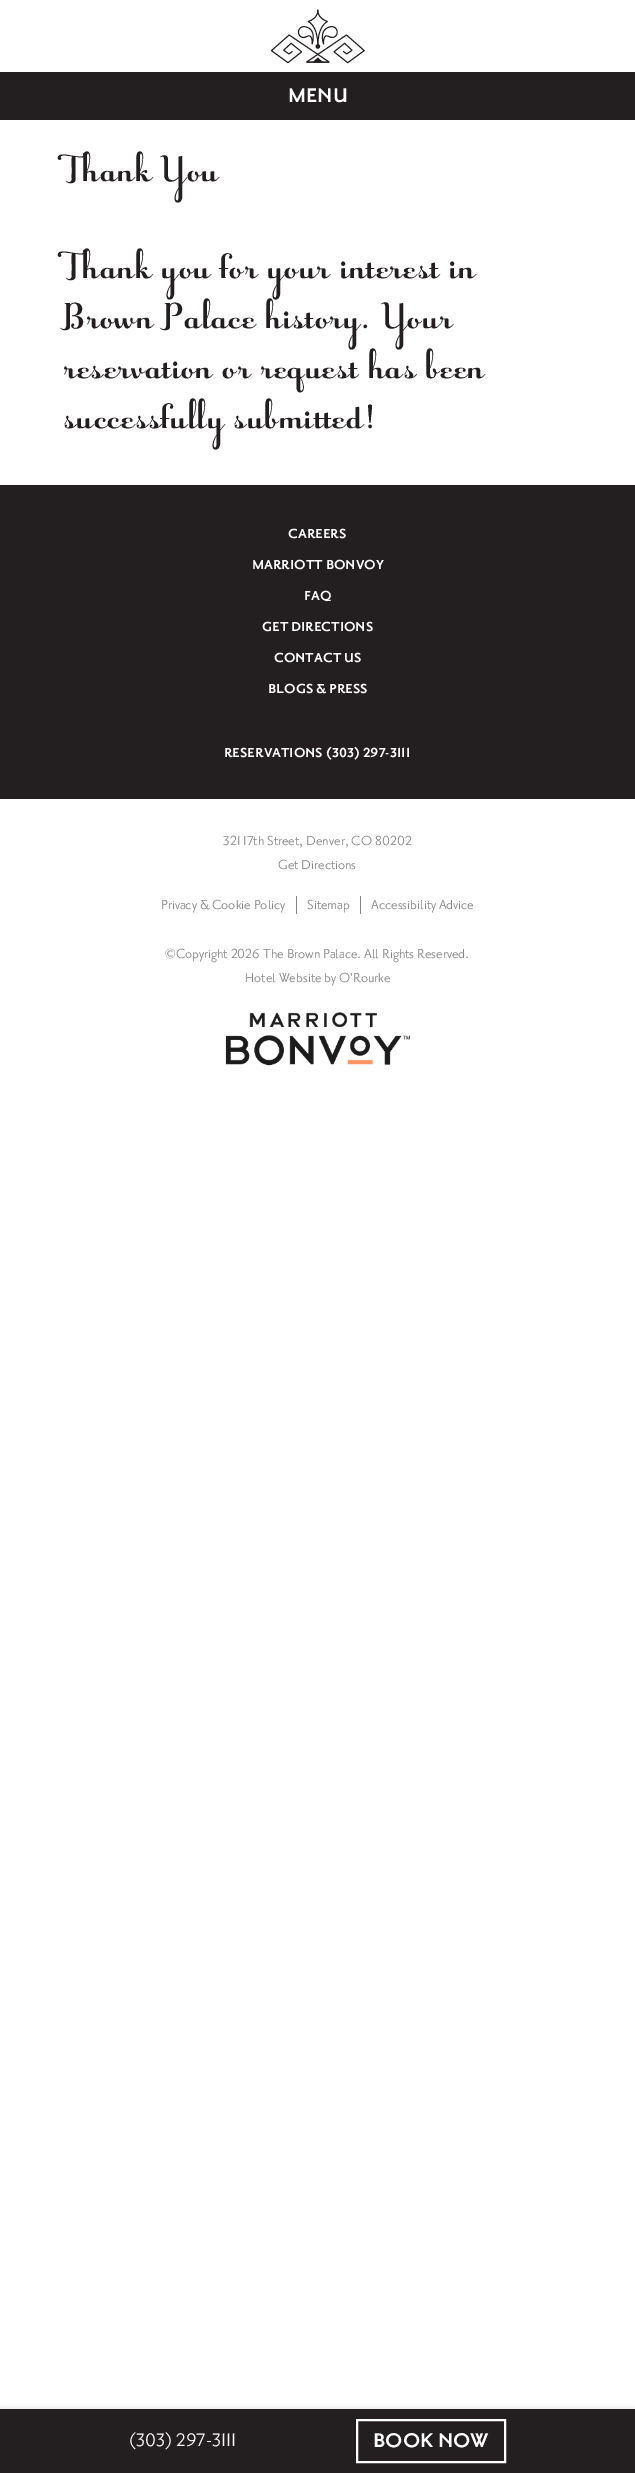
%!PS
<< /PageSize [635 2473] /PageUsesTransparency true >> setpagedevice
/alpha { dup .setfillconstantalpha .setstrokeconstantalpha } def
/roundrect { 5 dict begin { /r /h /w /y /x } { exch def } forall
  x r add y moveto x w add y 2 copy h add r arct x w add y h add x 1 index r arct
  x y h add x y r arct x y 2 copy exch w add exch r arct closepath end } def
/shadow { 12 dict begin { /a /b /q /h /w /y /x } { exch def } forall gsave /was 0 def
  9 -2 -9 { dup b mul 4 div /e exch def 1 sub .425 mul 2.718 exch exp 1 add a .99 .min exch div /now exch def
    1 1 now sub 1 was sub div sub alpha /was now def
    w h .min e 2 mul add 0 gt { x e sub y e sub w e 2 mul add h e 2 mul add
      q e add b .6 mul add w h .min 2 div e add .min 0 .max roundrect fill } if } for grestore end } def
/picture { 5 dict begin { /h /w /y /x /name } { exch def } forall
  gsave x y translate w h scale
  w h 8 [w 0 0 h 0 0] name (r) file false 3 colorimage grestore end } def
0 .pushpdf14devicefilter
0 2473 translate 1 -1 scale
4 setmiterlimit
1 setgray
0 0 635 2473 rectfill
(img1.rgb) 271 9 94 55 picture
0.137 0.122 0.125 setrgbcolor
0 72 635 48 rectfill
/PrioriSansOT-Bold [24 0 0 -24 0 0] selectfont
1 setgray
288 102 moveto (MENU) show
/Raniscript-Regular [41.6 0 0 -41.6 0 0] selectfont
0.137 0.122 0.125 setrgbcolor
63 181 moveto 1 0 (Thank You) ashow
63 278 moveto 1 0 (Thank you for your interest in) ashow
63 328 moveto 1 0 (Brown Palace history. Your) ashow
63 378 moveto 1 0 (reservation or request has been) ashow
63 428 moveto 1 0 (successfully submitted!) ashow
0 485 635 314 rectfill
/PrioriSansOT-Bold [16 0 0 -16 0 0] selectfont
1 setgray
288 538 moveto (CAREERS) show
252 569 moveto (MARRIOTT BONVOY) show
304 600 moveto (FAQ) show
262 631 moveto (GET DIRECTIONS) show
274 662 moveto (CONTACT US) show
268 693 moveto (BLOGS & PRESS) show
224 757 moveto (RESERVATIONS \(303\) 297-3111) show
/PrioriSansOT-Regular [16 0 0 -16 0 0] selectfont
0.525 setgray
223 845 moveto (321 17th Street, Denver, CO 80202) show
278 869 moveto (Get Directions) show
161 909 moveto (Privacy & Cookie Policy) show
296 896 1 18 rectfill
307 909 moveto (Sitemap) show
360 896 1 18 rectfill
371 909 moveto (Accessibility Advice) show
165 958 moveto (©Copyright 2026 The Brown Palace. All Rights Reserved.) show
245 982 moveto (Hotel Website by O'Rourke) show
(img2.rgb) 225 1012 185 54 picture
0 setgray
0 2408 635 64 0 2.5 0.1 shadow
0.137 0.122 0.125 setrgbcolor
0 2409 635 64 rectfill
/PrioriSansOT-Regular [22 0 0 -22 0 0] selectfont
1 setgray
129 2446 moveto (\(303\) 297-3111) show
2 setlinewidth
357 2420 148 42 rectstroke
/PrioriSansOT-Bold [24 0 0 -24 0 0] selectfont
373 2447 moveto (BOOK NOW) show
.poppdf14devicefilter showpage
